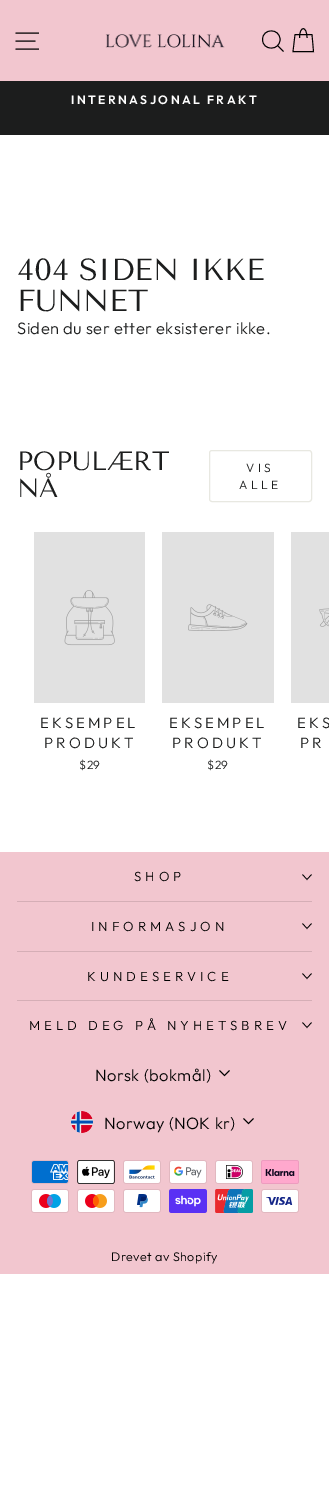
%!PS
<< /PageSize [329 1490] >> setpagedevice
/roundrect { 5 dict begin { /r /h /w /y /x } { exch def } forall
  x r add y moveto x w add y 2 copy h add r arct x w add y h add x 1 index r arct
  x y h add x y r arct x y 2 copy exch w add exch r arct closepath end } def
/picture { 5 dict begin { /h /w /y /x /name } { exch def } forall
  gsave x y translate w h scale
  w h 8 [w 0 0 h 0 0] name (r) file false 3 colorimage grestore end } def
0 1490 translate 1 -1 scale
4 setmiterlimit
1 setgray
0 0 329 1490 rectfill
0.949 0.776 0.812 setrgbcolor
0 0 329 81 rectfill
0 setgray
0.9 setlinewidth
newpath 15.5 33 moveto 39 33 lineto 15.5 41 moveto 35.5 41 lineto 15.5 49 moveto 39 49 lineto stroke
(img1.rgb) 105 34 120 14 picture
newpath 280 39.5 moveto 280 51 262.5 51 262.5 39.5 curveto 262.5 28 280 28 280 39.5 curveto closepath 283.5 51.5 moveto 277.5 45.5 lineto 299.5 38 moveto 299.5 25.5 307 25.5 307 38 curveto 295 34.5 moveto 312 34.5 lineto 313.5 51.5 lineto 293 51.5 lineto closepath stroke
0.11 0.114 0.114 setrgbcolor
0 81 329 54 rectfill
/Outfit-SemiBold [12.2 0 0 -12.2 0 0] selectfont
1 setgray
71 104 moveto 2.4 0 (INTERNASJONAL FRAKT) ashow
/TenorSans-Regular [30.5 0 0 -30.5 0 0] selectfont
0.11 0.114 0.114 setrgbcolor
17 280 moveto (404 SIDEN IKKE) show
17 311 moveto (FUNNET) show
/Outfit-Light [16.5 0 0 -16.5 0 0] selectfont
17 334 moveto 0.4 0 (Siden du ser etter eksisterer ikke.) ashow
/TenorSans-Regular [26.25 0 0 -26.25 0 0] selectfont
17 470 moveto (POPULÆRT) show
17 497 moveto (NÅ) show
0.91 0.91 0.882 setrgbcolor
1 setlinewidth
209.5 450.5 102 51 2.5 roundrect stroke
/Outfit-Light [12 0 0 -12 0 0] selectfont
0.11 0.114 0.114 setrgbcolor
246 472 moveto 3.5 0 (VIS) ashow
239 489 moveto 3.5 0 (ALLE) ashow
0.882 setgray
34 532 111 171 rectfill
(img2.rgb) 64 590 51 56 picture
/Outfit-Light [15 0 0 -15 0 0] selectfont
0.11 0.114 0.114 setrgbcolor
40 728 moveto 3 0 (EKSEMPEL) ashow
44 748 moveto 3 0 (PRODUKT) ashow
/Outfit-Light [12 0 0 -12 0 0] selectfont
79 769 moveto 0.4 0 ($29) ashow
0.882 setgray
162 532 112 171 rectfill
(img3.rgb) 188 604 60 27 picture
/Outfit-Light [15 0 0 -15 0 0] selectfont
0.11 0.114 0.114 setrgbcolor
169 728 moveto 3 0 (EKSEMPEL) ashow
172 748 moveto 3 0 (PRODUKT) ashow
/Outfit-Light [12 0 0 -12 0 0] selectfont
207 769 moveto 0.4 0 ($29) ashow
0.882 setgray
291 532 38 171 rectfill
(img4.rgb) 319 608 10 19 picture
/Outfit-Light [15 0 0 -15 0 0] selectfont
0.11 0.114 0.114 setrgbcolor
297 728 moveto 3 0 (EKS) ashow
300 748 moveto 3 0 (PR) ashow
0.949 0.776 0.812 setrgbcolor
0 852 329 422 rectfill
/Outfit-Light [13.25 0 0 -13.25 0 0] selectfont
0 setgray
134 881 moveto 4 0 (SHOP) ashow
0.7 setlinewidth
newpath 302.5 874.5 moveto 307 879.5 lineto 311.5 874.5 lineto stroke
0.835 0.682 0.714 setrgbcolor
17 901 295 1 rectfill
0 setgray
91 931 moveto 4 0 (INFORMASJON) ashow
newpath 302.5 923.5 moveto 307 928.5 lineto 311.5 923.5 lineto stroke
0.835 0.682 0.714 setrgbcolor
17 951 295 1 rectfill
0 setgray
87 981 moveto 4 0 (KUNDESERVICE) ashow
newpath 302.5 973.5 moveto 307 978.5 lineto 311.5 973.5 lineto stroke
0.835 0.682 0.714 setrgbcolor
17 1000 295 1 rectfill
0 setgray
29 1030 moveto 4 0 (MELD DEG PÅ NYHETSBREV) ashow
newpath 302.5 1022.5 moveto 307 1027.5 lineto 311.5 1022.5 lineto stroke
/Outfit-Light [16.5 0 0 -16.5 0 0] selectfont
95 1081 moveto 0.4 0 (Norsk \(bokmål\)) ashow
0.8 setlinewidth
newpath 219.5 1070.5 moveto 224.5 1075.5 lineto 229.5 1070.5 lineto stroke
(img5.rgb) 71 1111 22 22 picture
104 1129 moveto 0.4 0 (Norway \(NOK kr\)) ashow
newpath 243.5 1118.5 moveto 248.5 1123.5 lineto 253.5 1118.5 lineto stroke
(img6.rgb) 31 1160 38 24 picture
(img7.rgb) 77 1160 38 24 picture
(img8.rgb) 123 1160 38 24 picture
(img9.rgb) 169 1160 38 24 picture
(img10.rgb) 215 1160 38 24 picture
(img11.rgb) 261 1160 38 24 picture
(img12.rgb) 31 1189 38 24 picture
(img13.rgb) 77 1189 38 24 picture
(img14.rgb) 123 1189 38 24 picture
(img15.rgb) 169 1189 38 24 picture
(img16.rgb) 215 1189 38 24 picture
(img17.rgb) 261 1189 38 24 picture
/Outfit-Light [12.5 0 0 -12.5 0 0] selectfont
111 1261 moveto 0.4 0 (Drevet av Shopify) ashow
showpage
